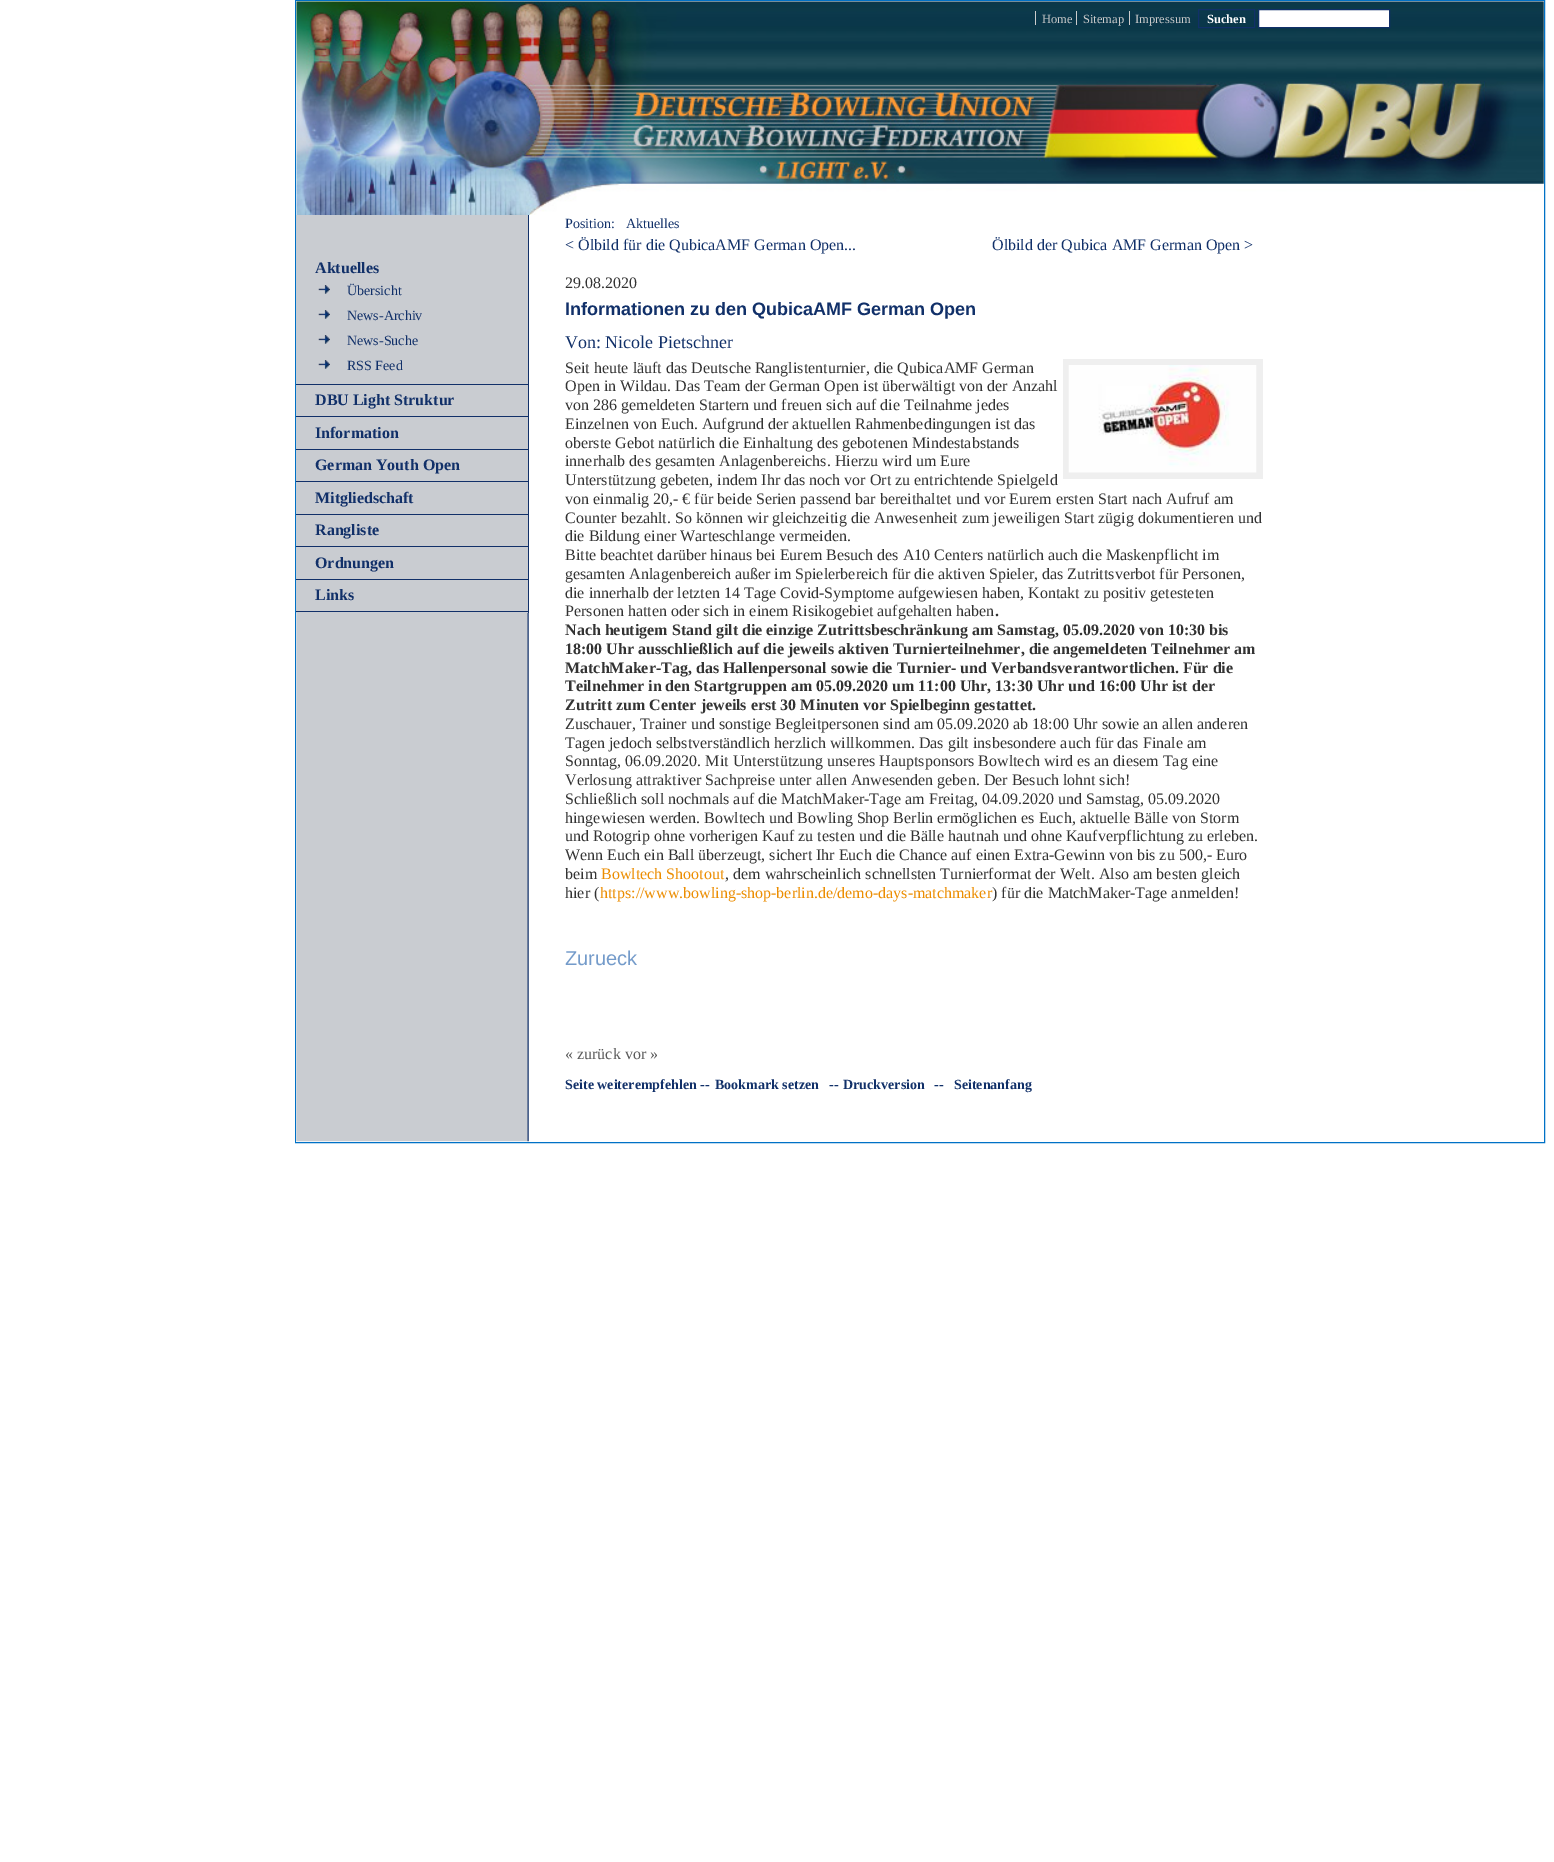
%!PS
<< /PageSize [1554 1862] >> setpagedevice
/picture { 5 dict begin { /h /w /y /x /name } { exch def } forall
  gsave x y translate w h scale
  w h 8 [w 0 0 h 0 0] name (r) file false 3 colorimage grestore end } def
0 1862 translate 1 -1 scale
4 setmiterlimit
1 setgray
0 0 1554 1862 rectfill
0 0.443 0.776 setrgbcolor
295.5 0.5 1249 1142 rectstroke
(img1.rgb) 296 1 1248 214 picture
/LiberationSerif-Regular [12.5 0 0 -12.5 0 0] selectfont
0.8 setgray
1042 23 moveto (Home) show
1035 11 1 14 rectfill
1083 23 moveto (Sitemap) show
1076 11 1 14 rectfill
1135 23 moveto (Impressum) show
1129 11 1 14 rectfill
0.067 0.188 0.412 setrgbcolor
1198.5 9.5 56 18 rectstroke
/LiberationSerif-Bold [12.5 0 0 -12.5 0 0] selectfont
1 setgray
1207 23 moveto (Suchen) show
newpath 1258.5 9.5 moveto 1389.5 9.5 lineto 1389.5 27.5 lineto 1258.5 27.5 lineto closepath gsave fill grestore
0.067 0.188 0.412 setrgbcolor
stroke
(img2.rgb) 296 613 233 529 picture
0.788 0.8 0.82 setrgbcolor
296 215 232 398 rectfill
0.067 0.188 0.412 setrgbcolor
528 215 1 398 rectfill
296 384 232 1 rectfill
/LiberationSerif-Bold [16 0 0 -16 0 0] selectfont
315 273 moveto (Aktuelles) show
(img3.rgb) 318 285 12 9 picture
/LiberationSerif-Regular [14 0 0 -14 0 0] selectfont
347 295 moveto (Übersicht) show
(img3.rgb) 318 310 12 9 picture
347 320 moveto (News-Archiv) show
(img3.rgb) 318 335 12 9 picture
347 345 moveto (News-Suche) show
(img3.rgb) 318 360 12 9 picture
347 370 moveto (RSS Feed) show
296 416 232 1 rectfill
/LiberationSerif-Bold [16 0 0 -16 0 0] selectfont
315 405 moveto (DBU Light Struktur) show
296 449 232 1 rectfill
315 438 moveto (Information) show
296 481 232 1 rectfill
315 470 moveto (German Youth Open) show
296 514 232 1 rectfill
315 503 moveto (Mitgliedschaft) show
296 546 232 1 rectfill
315 535 moveto (Rangliste) show
296 579 232 1 rectfill
315 568 moveto (Ordnungen) show
296 611 232 1 rectfill
315 600 moveto (Links) show
/LiberationSerif-Regular [14 0 0 -14 0 0] selectfont
565 228 moveto (Position:) show
626 228 moveto (Aktuelles) show
/LiberationSerif-Regular [16 0 0 -16 0 0] selectfont
565 250 moveto (< Ölbild für die QubicaAMF German Open...) show
992 250 moveto (Ölbild der Qubica AMF German Open >) show
0.2 setgray
565 288 moveto (29.08.2020) show
/LiberationSans-Bold [18 0 0 -18 0 0] selectfont
0.067 0.188 0.412 setrgbcolor
565 315 moveto (Informationen zu den QubicaAMF German Open) show
/LiberationSerif-Regular [18 0 0 -18 0 0] selectfont
565 348 moveto (Von: Nicole Pietschner) show
0.937 setgray
1063 359 200 120 rectfill
(img4.rgb) 1068 365 189 108 picture
/LiberationSerif-Regular [16 0 0 -16 0 0] selectfont
0.2 setgray
565 373 moveto (Seit heute läuft das Deutsche Ranglistenturnier, die QubicaAMF German) show
565 391 moveto (Open in Wildau. Das Team der German Open ist überwältigt von der Anzahl) show
565 410 moveto (von 286 gemeldeten Startern und freuen sich auf die Teilnahme jedes) show
565 429 moveto (Einzelnen von Euch. Aufgrund der aktuellen Rahmenbedingungen ist das) show
565 448 moveto (oberste Gebot natürlich die Einhaltung des gebotenen Mindestabstands) show
565 466 moveto (innerhalb des gesamten Anlagenbereichs. Hierzu wird um Eure) show
565 485 moveto (Unterstützung gebeten, indem Ihr das noch vor Ort zu entrichtende Spielgeld) show
565 504 moveto (von einmalig 20,- € für beide Serien passend bar bereithaltet und vor Eurem ersten Start nach Aufruf am) show
565 523 moveto (Counter bezahlt. So können wir gleichzeitig die Anwesenheit zum jeweiligen Start zügig dokumentieren und) show
565 541 moveto (die Bildung einer Warteschlange vermeiden.) show
565 560 moveto (Bitte beachtet darüber hinaus bei Eurem Besuch des A10 Centers natürlich auch die Maskenpflicht im) show
565 579 moveto (gesamten Anlagenbereich außer im Spielerbereich für die aktiven Spieler, das Zutrittsverbot für Personen,) show
565 598 moveto (die innerhalb der letzten 14 Tage Covid-Symptome aufgewiesen haben, Kontakt zu positiv getesteten) show
565 616 moveto (Personen hatten oder sich in einem Risikogebiet aufgehalten haben) show
/LiberationSerif-Bold [16 0 0 -16 0 0] selectfont
995 616 moveto (.) show
565 635 moveto (Nach heutigem Stand gilt die einzige Zutrittsbeschränkung am Samstag, 05.09.2020 von 10:30 bis) show
565 654 moveto (18:00 Uhr ausschließlich auf die jeweils aktiven Turnierteilnehmer, die angemeldeten Teilnehmer am) show
565 673 moveto (MatchMaker-Tag, das Hallenpersonal sowie die Turnier- und Verbandsverantwortlichen. Für die) show
565 691 moveto (Teilnehmer in den Startgruppen am 05.09.2020 um 11:00 Uhr, 13:30 Uhr und 16:00 Uhr ist der) show
565 710 moveto (Zutritt zum Center jeweils erst 30 Minuten vor Spielbeginn gestattet.) show
/LiberationSerif-Regular [16 0 0 -16 0 0] selectfont
565 729 moveto (Zuschauer, Trainer und sonstige Begleitpersonen sind am 05.09.2020 ab 18:00 Uhr sowie an allen anderen) show
565 748 moveto (Tagen jedoch selbstverständlich herzlich willkommen. Das gilt insbesondere auch für das Finale am) show
565 766 moveto (Sonntag, 06.09.2020. Mit Unterstützung unseres Hauptsponsors Bowltech wird es an diesem Tag eine) show
565 785 moveto (Verlosung attraktiver Sachpreise unter allen Anwesenden geben. Der Besuch lohnt sich!) show
565 804 moveto (Schließlich soll nochmals auf die MatchMaker-Tage am Freitag, 04.09.2020 und Samstag, 05.09.2020) show
565 823 moveto (hingewiesen werden. Bowltech und Bowling Shop Berlin ermöglichen es Euch, aktuelle Bälle von Storm) show
565 841 moveto (und Rotogrip ohne vorherigen Kauf zu testen und die Bälle hautnah und ohne Kaufverpflichtung zu erleben.) show
565 860 moveto (Wenn Euch ein Ball überzeugt, sichert Ihr Euch die Chance auf einen Extra-Gewinn von bis zu 500,- Euro) show
565 879 moveto (beim) show
0.925 0.553 0 setrgbcolor
601 879 moveto (Bowltech Shootout) show
0.2 setgray
725 879 moveto (, dem wahrscheinlich schnellsten Turnierformat der Welt. Also am besten gleich) show
565 898 moveto (hier \() show
0.925 0.553 0 setrgbcolor
600 898 moveto (https://www.bowling-shop-berlin.de/demo-days-matchmaker) show
0.2 setgray
992 898 moveto (\) für die MatchMaker-Tage anmelden!) show
/LiberationSans-Regular [20 0 0 -20 0 0] selectfont
0.455 0.608 0.792 setrgbcolor
565 965 moveto (Zurueck) show
/LiberationSerif-Regular [16 0 0 -16 0 0] selectfont
0.353 setgray
565 1059 moveto (« zurück vor ») show
/LiberationSerif-Bold [14 0 0 -14 0 0] selectfont
0.067 0.188 0.412 setrgbcolor
565 1089 moveto (Seite weiterempfehlen --) show
715 1089 moveto (Bookmark setzen   --) show
843 1089 moveto (Druckversion) show
934 1089 moveto (--   Seitenanfang) show
showpage
